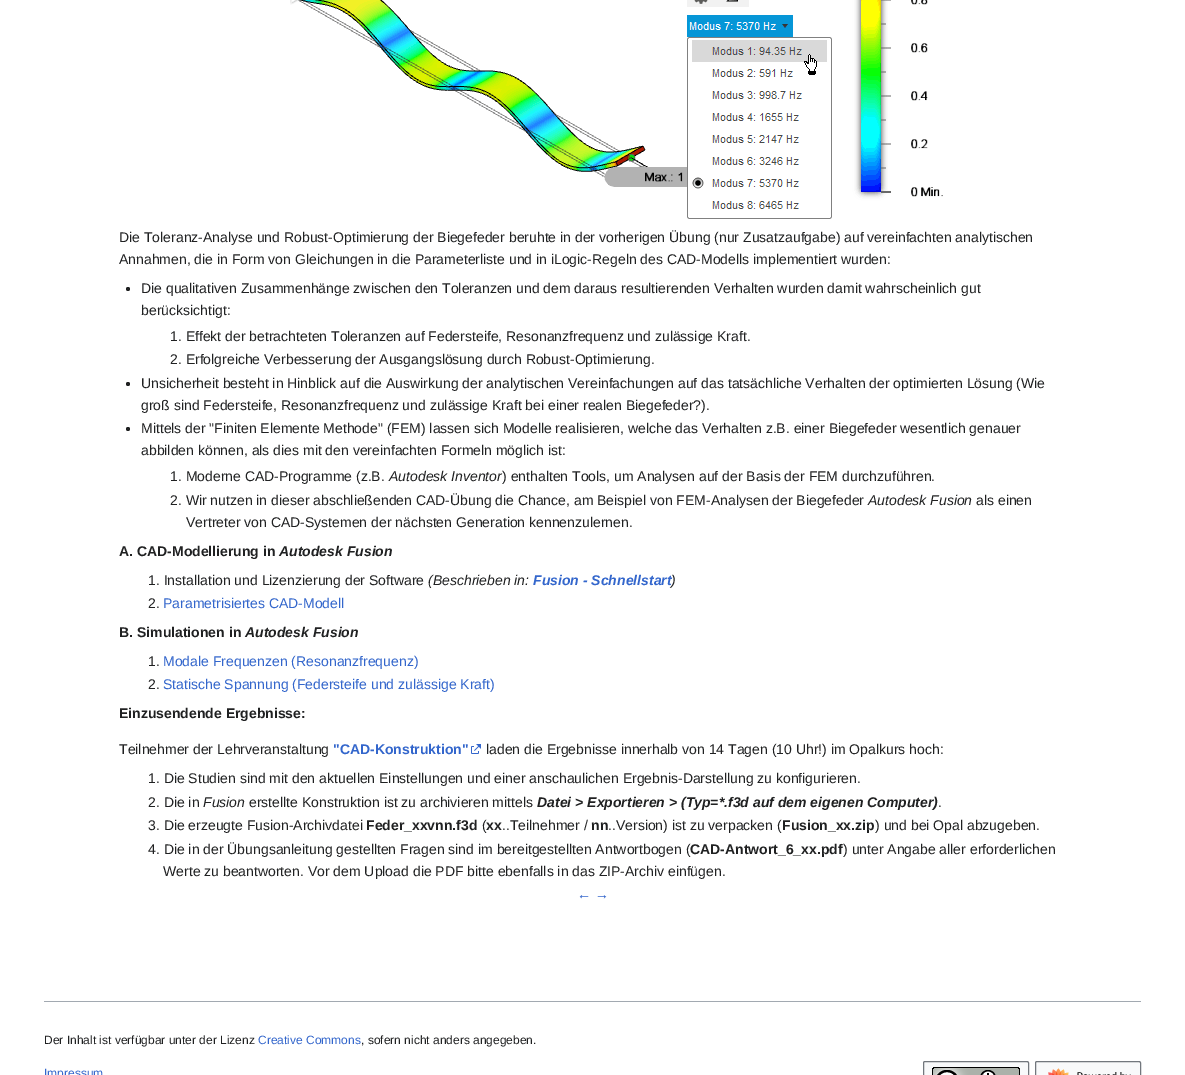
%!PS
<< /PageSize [1185 1075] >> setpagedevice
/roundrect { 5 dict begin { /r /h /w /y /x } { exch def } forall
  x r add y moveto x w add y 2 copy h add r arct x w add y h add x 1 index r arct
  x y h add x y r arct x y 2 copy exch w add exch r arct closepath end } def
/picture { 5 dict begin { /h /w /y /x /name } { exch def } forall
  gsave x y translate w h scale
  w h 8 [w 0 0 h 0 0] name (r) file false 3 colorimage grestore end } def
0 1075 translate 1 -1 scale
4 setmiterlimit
1 setgray
0 0 1185 1075 rectfill
(img1.rgb) 290 0 653 219 picture
/LiberationSans-Regular [14 0 0 -14 0 0] selectfont
0.125 0.129 0.133 setrgbcolor
119 242 moveto (Die Toleranz-Analyse und Robust-Optimierung der Biegefeder beruhte in der vorherigen Übung \(nur Zusatzaufgabe\) auf vereinfachten analytischen) show
119 264 moveto (Annahmen, die in Form von Gleichungen in die Parameterliste und in iLogic-Regeln des CAD-Modells implementiert wurden:) show
newpath 128 289 2 0 360 arc closepath fill
141 293 moveto (Die qualitativen Zusammenhänge zwischen den Toleranzen und dem daraus resultierenden Verhalten wurden damit wahrscheinlich gut) show
141 315 moveto (berücksichtigt:) show
170 341 moveto (1. Effekt der betrachteten Toleranzen auf Federsteife, Resonanzfrequenz und zulässige Kraft.) show
170 364 moveto (2. Erfolgreiche Verbesserung der Ausgangslösung durch Robust-Optimierung.) show
newpath 128 384 2 0 360 arc closepath fill
141 388 moveto (Unsicherheit besteht in Hinblick auf die Auswirkung der analytischen Vereinfachungen auf das tatsächliche Verhalten der optimierten Lösung \(Wie) show
141 410 moveto (groß sind Federsteife, Resonanzfrequenz und zulässige Kraft bei einer realen Biegefeder?\).) show
newpath 128 429 2 0 360 arc closepath fill
141 433 moveto (Mittels der "Finiten Elemente Methode" \(FEM\) lassen sich Modelle realisieren, welche das Verhalten z.B. einer Biegefeder wesentlich genauer) show
141 455 moveto (abbilden können, als dies mit den vereinfachten Formeln möglich ist:) show
170 481 moveto (1. Moderne CAD-Programme \(z.B.) show
/LiberationSans-Italic [14 0 0 -14 0 0] selectfont
389 481 moveto (Autodesk Inventor) show
/LiberationSans-Regular [14 0 0 -14 0 0] selectfont
502 481 moveto (\) enthalten Tools, um Analysen auf der Basis der FEM durchzuführen.) show
170 505 moveto (2. Wir nutzen in dieser abschließenden CAD-Übung die Chance, am Beispiel von FEM-Analysen der Biegefeder) show
/LiberationSans-Italic [14 0 0 -14 0 0] selectfont
868 505 moveto (Autodesk Fusion) show
/LiberationSans-Regular [14 0 0 -14 0 0] selectfont
976 505 moveto (als einen) show
186 527 moveto (Vertreter von CAD-Systemen der nächsten Generation kennenzulernen.) show
/LiberationSans-Bold [14 0 0 -14 0 0] selectfont
119 556 moveto (A. CAD-Modellierung in) show
/LiberationSans-BoldItalic [14 0 0 -14 0 0] selectfont
279 556 moveto (Autodesk Fusion) show
/LiberationSans-Regular [14 0 0 -14 0 0] selectfont
148 585 moveto (1. Installation und Lizenzierung der Software) show
/LiberationSans-Italic [14 0 0 -14 0 0] selectfont
428 585 moveto (\(Beschrieben in:) show
/LiberationSans-BoldItalic [14 0 0 -14 0 0] selectfont
0.2 0.4 0.8 setrgbcolor
533 585 moveto (Fusion - Schnellstart) show
/LiberationSans-Italic [14 0 0 -14 0 0] selectfont
0.125 0.129 0.133 setrgbcolor
671 585 moveto (\)) show
/LiberationSans-Regular [14 0 0 -14 0 0] selectfont
148 608 moveto (2.) show
0.2 0.4 0.8 setrgbcolor
163 608 moveto (Parametrisiertes CAD-Modell) show
/LiberationSans-Bold [14 0 0 -14 0 0] selectfont
0.125 0.129 0.133 setrgbcolor
119 637 moveto (B. Simulationen in) show
/LiberationSans-BoldItalic [14 0 0 -14 0 0] selectfont
245 637 moveto (Autodesk Fusion) show
/LiberationSans-Regular [14 0 0 -14 0 0] selectfont
148 666 moveto (1.) show
0.2 0.4 0.8 setrgbcolor
163 666 moveto (Modale Frequenzen \(Resonanzfrequenz\)) show
0.125 0.129 0.133 setrgbcolor
148 689 moveto (2.) show
0.2 0.4 0.8 setrgbcolor
163 689 moveto (Statische Spannung \(Federsteife und zulässige Kraft\)) show
/LiberationSans-Bold [14 0 0 -14 0 0] selectfont
0.125 0.129 0.133 setrgbcolor
119 718 moveto (Einzusendende Ergebnisse:) show
/LiberationSans-Regular [14 0 0 -14 0 0] selectfont
119 754 moveto (Teilnehmer der Lehrveranstaltung) show
/LiberationSans-Bold [14 0 0 -14 0 0] selectfont
0.2 0.4 0.8 setrgbcolor
333 754 moveto ("CAD-Konstruktion") show
(img2.rgb) 471 744 10 10 picture
/LiberationSans-Regular [14 0 0 -14 0 0] selectfont
0.125 0.129 0.133 setrgbcolor
486 754 moveto (laden die Ergebnisse innerhalb von 14 Tagen \(10 Uhr!\) im Opalkurs hoch:) show
148 783 moveto (1. Die Studien sind mit den aktuellen Einstellungen und einer anschaulichen Ergebnis-Darstellung zu konfigurieren.) show
148 807 moveto (2. Die in) show
/LiberationSans-Italic [14 0 0 -14 0 0] selectfont
203 807 moveto (Fusion) show
/LiberationSans-Regular [14 0 0 -14 0 0] selectfont
249 807 moveto (erstellte Konstruktion ist zu archivieren mittels) show
/LiberationSans-BoldItalic [14 0 0 -14 0 0] selectfont
537 807 moveto (Datei > Exportieren > \(Typ=*.f3d auf dem eigenen Computer\)) show
/LiberationSans-Regular [14 0 0 -14 0 0] selectfont
938 807 moveto (.) show
148 830 moveto (3. Die erzeugte Fusion-Archivdatei) show
/LiberationSans-Bold [14 0 0 -14 0 0] selectfont
366 830 moveto (Feder_xxvnn.f3d) show
/LiberationSans-Regular [14 0 0 -14 0 0] selectfont
482 830 moveto (\() show
/LiberationSans-Bold [14 0 0 -14 0 0] selectfont
486 830 moveto (xx) show
/LiberationSans-Regular [14 0 0 -14 0 0] selectfont
502 830 moveto (..Teilnehmer /) show
/LiberationSans-Bold [14 0 0 -14 0 0] selectfont
591 830 moveto (nn) show
/LiberationSans-Regular [14 0 0 -14 0 0] selectfont
608 830 moveto (..Version\) ist zu verpacken \() show
/LiberationSans-Bold [14 0 0 -14 0 0] selectfont
782 830 moveto (Fusion_xx.zip) show
/LiberationSans-Regular [14 0 0 -14 0 0] selectfont
875 830 moveto (\) und bei Opal abzugeben.) show
148 854 moveto (4. Die in der Übungsanleitung gestellten Fragen sind im bereitgestellten Antwortbogen \() show
/LiberationSans-Bold [14 0 0 -14 0 0] selectfont
690 854 moveto (CAD-Antwort_6_xx.pdf) show
/LiberationSans-Regular [14 0 0 -14 0 0] selectfont
843 854 moveto (\) unter Angabe aller erforderlichen) show
163 876 moveto (Werte zu beantworten. Vor dem Upload die PDF bitte ebenfalls in das ZIP-Archiv einfügen.) show
0.2 0.4 0.8 setrgbcolor
577 899 moveto (← →) show
0.635 0.663 0.694 setrgbcolor
44 1001 1097 1 rectfill
/LiberationSans-Regular [12 0 0 -12 0 0] selectfont
0.125 0.129 0.133 setrgbcolor
44 1044 moveto (Der Inhalt ist verfügbar unter der Lizenz) show
0.2 0.4 0.8 setrgbcolor
258 1044 moveto (Creative Commons) show
0.125 0.129 0.133 setrgbcolor
361 1044 moveto (, sofern nicht anders angegeben.) show
0.2 0.4 0.8 setrgbcolor
44 1077 moveto (Impressum) show
0.973 0.976 0.98 setrgbcolor
923.5 1061.5 105 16 1.5 roundrect gsave fill grestore
0.447 0.467 0.49 setrgbcolor
stroke
(img3.rgb) 932 1067 88 8 picture
0.973 0.976 0.98 setrgbcolor
1035.5 1061.5 105 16 1.5 roundrect gsave fill grestore
0.447 0.467 0.49 setrgbcolor
stroke
(img4.rgb) 1048 1068 83 7 picture
showpage
